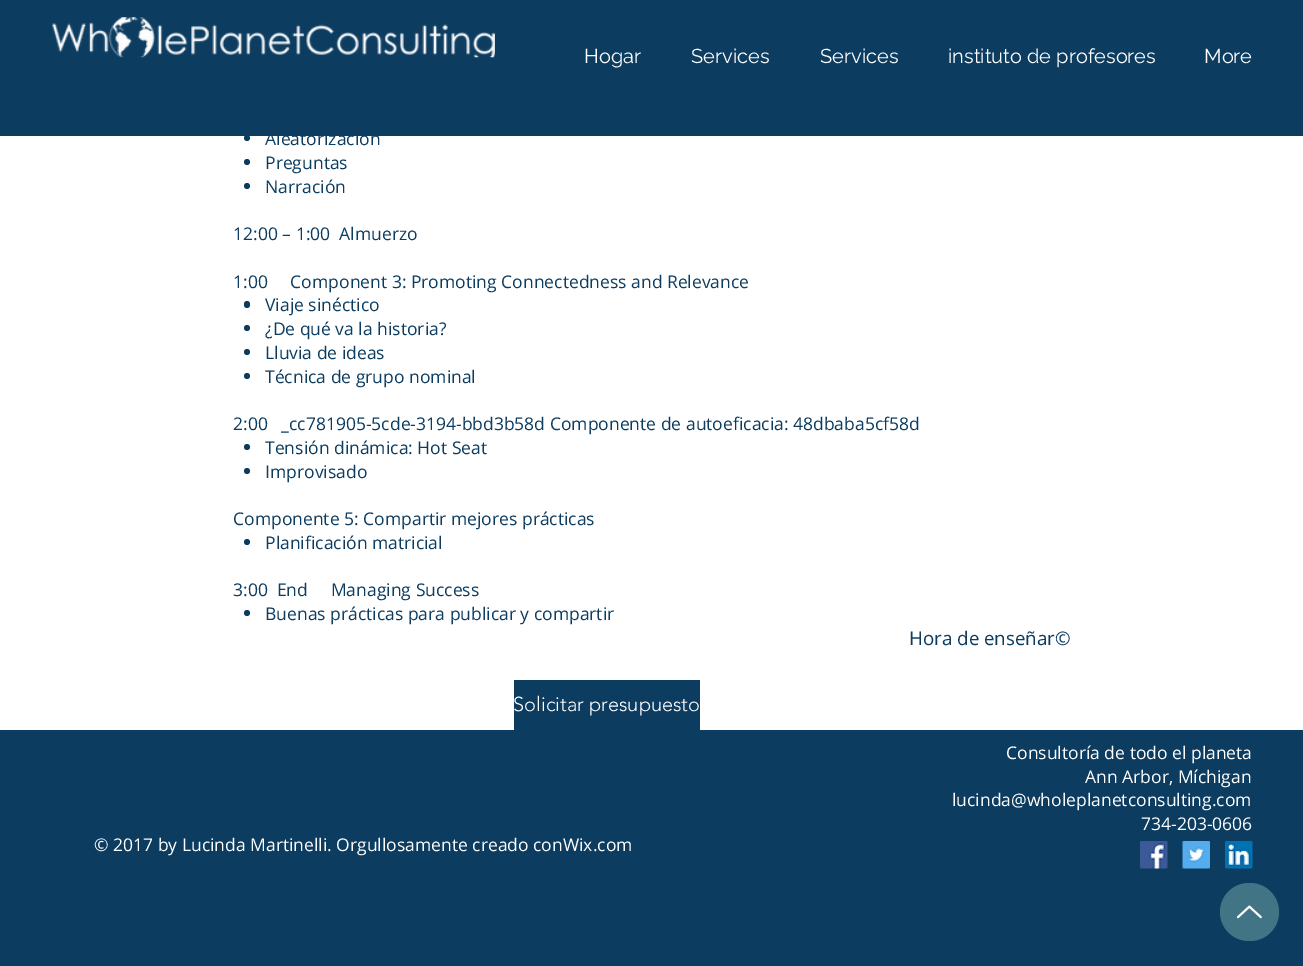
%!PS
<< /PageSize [1303 966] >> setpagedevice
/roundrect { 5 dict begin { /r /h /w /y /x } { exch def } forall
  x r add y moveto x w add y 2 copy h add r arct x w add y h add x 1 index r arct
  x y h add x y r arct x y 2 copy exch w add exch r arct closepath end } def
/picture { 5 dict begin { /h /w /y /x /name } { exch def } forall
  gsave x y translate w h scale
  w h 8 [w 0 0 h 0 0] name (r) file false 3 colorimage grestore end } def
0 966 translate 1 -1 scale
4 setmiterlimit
1 setgray
0 0 1303 966 rectfill
0.047 0.235 0.376 setrgbcolor
newpath 247 138 3 0 360 arc closepath fill
0 0 1303 136 rectfill
(img1.rgb) 52 17 443 41 picture
/Raleway-Regular [20 0 0 -20 0 0] selectfont
1 setgray
584 63 moveto (Hogar) show
691 63 moveto (Services) show
820 63 moveto (Services) show
948 63 moveto (instituto de profesores) show
1204 63 moveto (More) show
/OpenSans-Regular [17.5 0 0 -17.5 0 0] selectfont
0.047 0.235 0.376 setrgbcolor
265 145 moveto (Aleatorización) show
newpath 247 162 3 0 360 arc closepath fill
265 169 moveto (Preguntas) show
newpath 247 186 3 0 360 arc closepath fill
265 193 moveto (Narración) show
233 240 moveto (12:00 – 1:00  Almuerzo) show
233 288 moveto (1:00     Component 3: Promoting Connectedness and Relevance) show
244 301 6 7 3 roundrect fill
265 311 moveto (Viaje sinéctico) show
newpath 247 328 3 0 360 arc closepath fill
265 335 moveto (¿De qué va la historia?) show
newpath 247 352 3 0 360 arc closepath fill
265 359 moveto (Lluvia de ideas) show
newpath 247 376 3 0 360 arc closepath fill
265 383 moveto (Técnica de grupo nominal) show
233 430 moveto (2:00   _cc781905-5cde-3194-bbd3b58d Componente de autoeficacia: 48dbaba5cf58d) show
newpath 247 447 3 0 360 arc closepath fill
265 454 moveto (Tensión dinámica: Hot Seat) show
newpath 247 471 3 0 360 arc closepath fill
265 478 moveto (Improvisado) show
233 525 moveto (Componente 5: Compartir mejores prácticas) show
newpath 247 542 3 0 360 arc closepath fill
265 549 moveto (Planificación matricial) show
233 596 moveto (3:00  End     Managing Success) show
newpath 247 613 3 0 360 arc closepath fill
265 620 moveto (Buenas prácticas para publicar y compartir) show
/OpenSans-Regular [18.75 0 0 -18.75 0 0] selectfont
909 645 moveto (Hora de enseñar©) show
514 680 186 50 rectfill
/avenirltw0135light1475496-Light [20 0 0 -20 0 0] selectfont
1 setgray
513 711 moveto (Solicitar presupuesto) show
0.047 0.235 0.376 setrgbcolor
0 730 1303 236 rectfill
/OpenSans-Regular [17.5 0 0 -17.5 0 0] selectfont
1 setgray
1006 759 moveto (Consultoría de todo el planeta) show
1085 783 moveto (Ann Arbor, Míchigan) show
952 806 moveto (lucinda@wholeplanetconsulting.com) show
1141 830 moveto (734-203-0606) show
94 851 moveto (© 2017 by Lucinda Martinelli. Orgullosamente creado conWix.com) show
(img2.rgb) 1140 841 28 28 picture
(img3.rgb) 1182 841 28 28 picture
(img4.rgb) 1225 841 28 28 picture
0.255 0.459 0.525 setrgbcolor
1220 883 59 58 29 roundrect fill
(img5.rgb) 1236 905 26 14 picture
showpage
